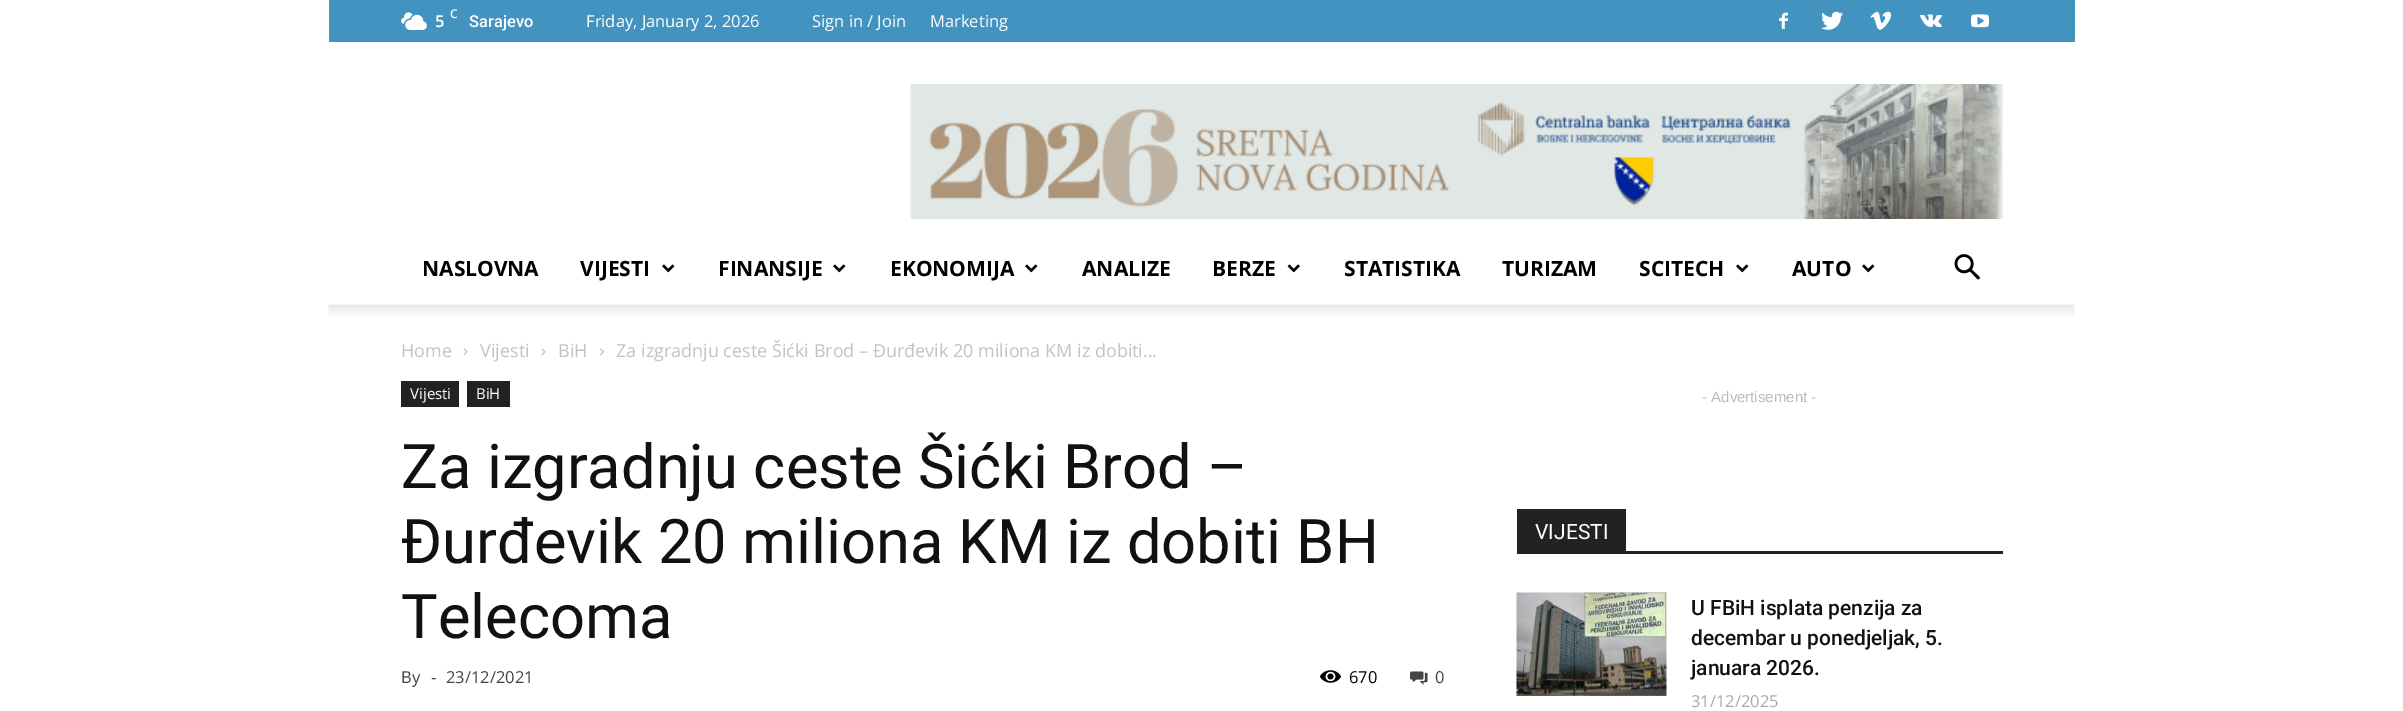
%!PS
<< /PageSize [2403 711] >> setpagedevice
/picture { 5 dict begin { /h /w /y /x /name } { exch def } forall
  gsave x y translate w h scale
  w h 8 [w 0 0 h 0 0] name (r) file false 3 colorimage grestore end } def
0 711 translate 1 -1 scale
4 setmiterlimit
1 setgray
0 0 2403 711 rectfill
0.263 0.576 0.757 setrgbcolor
329 0 1746 42 rectfill
(img1.rgb) 401 12 26 18 picture
/OpenSans-SemiBold [12 0 0 -12 0 0] selectfont
1 setgray
450 18 moveto (C) show
/OpenSans-SemiBold [16.5 0 0 -16.5 0 0] selectfont
435 27 moveto (5) show
/Roboto-Medium [16.5 0 0 -16.5 0 0] selectfont
469 27 moveto (Sarajevo) show
/OpenSans-Regular [16.5 0 0 -16.5 0 0] selectfont
586 27 moveto (Friday, January 2, 2026) show
812 27 moveto (Sign in / Join) show
930 27 moveto (Marketing) show
(img2.rgb) 1779 12 9 17 picture
(img3.rgb) 1821 11 22 19 picture
(img4.rgb) 1870 11 22 19 picture
(img5.rgb) 1920 14 22 14 picture
(img6.rgb) 1971 14 18 14 picture
(img7.rgb) 910 84 1093 135 picture
/OpenSans-Bold [21 0 0 -21 0 0] selectfont
0 setgray
422 276 moveto (NASLOVNA) show
580 276 moveto (VIJESTI) show
(img8.rgb) 662 264 13 9 picture
718 276 moveto (FINANSIJE) show
(img8.rgb) 833 264 13 9 picture
890 276 moveto (EKONOMIJA) show
(img8.rgb) 1025 264 13 9 picture
1082 276 moveto (ANALIZE) show
1212 276 moveto (BERZE) show
(img9.rgb) 1287 264 13 9 picture
1344 276 moveto (STATISTIKA) show
1502 276 moveto (TURIZAM) show
1639 276 moveto (SCITECH) show
(img8.rgb) 1736 264 13 9 picture
1792 276 moveto (AUTO) show
(img8.rgb) 1862 264 13 9 picture
(img10.rgb) 1954 254 26 26 picture
(img11.rgb) 328 304 1747 13 picture
/OpenSans-Regular [18 0 0 -18 0 0] selectfont
0.765 setgray
401 357 moveto (Home) show
(img12.rgb) 463 348 5 8 picture
480 357 moveto (Vijesti) show
(img12.rgb) 541 348 5 8 picture
558 357 moveto (BiH) show
(img13.rgb) 600 348 4 8 picture
616 357 moveto (Za izgradnju ceste Šićki Brod – Đurđevik 20 miliona KM iz dobiti...) show
0.133 setgray
401 381 58 26 rectfill
/OpenSans-Regular [15 0 0 -15 0 0] selectfont
1 setgray
410 399 moveto (Vijesti) show
0.133 setgray
467 381 43 26 rectfill
1 setgray
476 399 moveto (BiH) show
/Roboto-Regular [61.5 0 0 -61.5 0 0] selectfont
0.067 setgray
401 488 moveto (Za izgradnju ceste Šićki Brod –) show
401 563 moveto (Đurđevik 20 miliona KM iz dobiti BH) show
401 638 moveto (Telecoma) show
/OpenSans-Regular [16.5 0 0 -16.5 0 0] selectfont
0.267 setgray
401 683 moveto (By) show
431 683 moveto (-) show
446 683 moveto (23/12/2021) show
(img14.rgb) 1320 670 21 13 picture
0 setgray
1349 683 moveto (670) show
(img15.rgb) 1410 671 18 14 picture
0.267 setgray
1435 683 moveto (0) show
/LiberationSans-Regular [15 0 0 -15 0 0] selectfont
0.733 setgray
1702 402 moveto (- Advertisement -) show
0.133 setgray
1517 551 486 3 rectfill
1517 509 109 42 rectfill
/Roboto-Regular [21 0 0 -21 0 0] selectfont
1 setgray
1535 539 moveto (VIJESTI) show
(img16.rgb) 1516 592 151 104 picture
/Roboto-Medium [21 0 0 -21 0 0] selectfont
0.067 setgray
1691 615 moveto (U FBiH isplata penzija za) show
1691 645 moveto (decembar u ponedjeljak, 5.) show
1691 675 moveto (januara 2026.) show
/OpenSans-Regular [16.5 0 0 -16.5 0 0] selectfont
0.667 setgray
1691 707 moveto (31/12/2025) show
showpage
